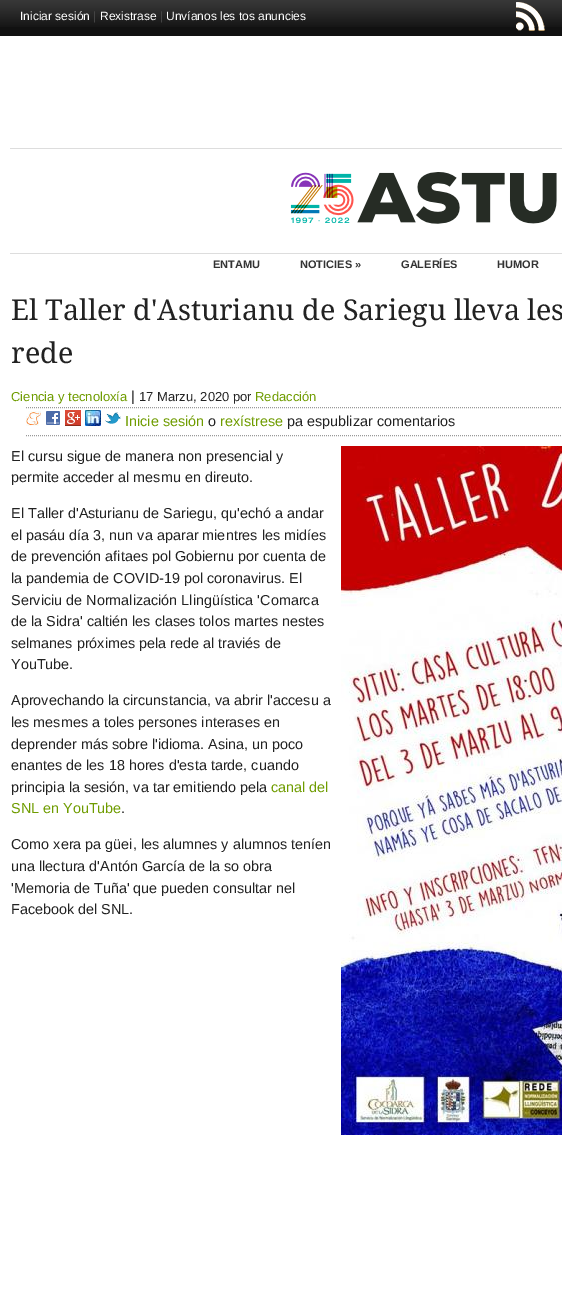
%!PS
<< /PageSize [562 1292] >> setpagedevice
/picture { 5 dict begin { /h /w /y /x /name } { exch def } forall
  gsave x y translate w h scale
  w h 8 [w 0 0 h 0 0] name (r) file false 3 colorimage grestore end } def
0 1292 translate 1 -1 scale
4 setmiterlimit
1 setgray
0 0 562 1292 rectfill
0.067 setgray
0 27 562 9 rectfill
(img1.rgb) 0 0 562 27 picture
/LiberationSans-Regular [12 0 0 -12 0 0] selectfont
1 setgray
20 20 moveto (Iniciar sesión) show
0.267 setgray
93 20 moveto (|) show
1 setgray
100 20 moveto (Rexistrase) show
0.267 setgray
160 20 moveto (|) show
1 setgray
166 20 moveto (Unvíanos les tos anuncies) show
(img2.rgb) 516 2 29 29 picture
0.867 setgray
10 148 552 1 rectfill
(img3.rgb) 290 172 267 52 picture
10 253 552 1 rectfill
/LiberationSans-Bold [11 0 0 -11 0 0] selectfont
0.2 setgray
213 268 moveto (ENTAMU) show
300 268 moveto (NOTICIES ») show
401 268 moveto (GALERÍES) show
497 268 moveto (HUMOR) show
/DroidSerif-Regular [28.75 0 0 -28.75 0 0] selectfont
0.133 setgray
11 320 moveto (El Taller d'Asturianu de Sariegu lleva les) show
11 363 moveto (rede) show
/LiberationSans-Regular [13 0 0 -13 0 0] selectfont
0.435 0.612 0 setrgbcolor
11 401 moveto (Ciencia y tecnoloxía) show
/LiberationSans-Regular [14.4 0 0 -14.4 0 0] selectfont
0.133 setgray
131 401 moveto (|) show
/LiberationSans-Regular [13 0 0 -13 0 0] selectfont
139 401 moveto (17 Marzu, 2020 por) show
0.435 0.612 0 setrgbcolor
255 401 moveto (Redacción) show
0.6 setgray
[1 1] 0 setdash
newpath 26 407.5 moveto 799 407.5 lineto stroke
newpath 26 435.5 moveto 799 435.5 lineto stroke
(img4.rgb) 26 411 15 15 picture
(img5.rgb) 46 411 14 14 picture
(img6.rgb) 65 410 16 16 picture
(img7.rgb) 85 410 16 16 picture
(img8.rgb) 105 412 16 12 picture
/LiberationSans-Regular [14.4 0 0 -14.4 0 0] selectfont
0.435 0.612 0 setrgbcolor
125 426 moveto (Inicie sesión) show
0.133 setgray
208 426 moveto (o) show
0.435 0.612 0 setrgbcolor
220 426 moveto (rexístrese) show
0.133 setgray
287 426 moveto (pa espublizar comentarios) show
11 461 moveto (El cursu sigue de manera non presencial y) show
11 482 moveto (permite acceder al mesmu en direuto.) show
11 518 moveto (El Taller d'Asturianu de Sariegu, qu'echó a andar) show
11 540 moveto (el pasáu día 3, nun va aparar mientres les midíes) show
11 561 moveto (de prevención afitaes pol Gobiernu por cuenta de) show
11 583 moveto (la pandemia de COVID-19 pol coronavirus. El) show
11 605 moveto (Serviciu de Normalización Llingüística 'Comarca) show
11 626 moveto (de la Sidra' caltién les clases tolos martes nestes) show
11 648 moveto (selmanes próximes pela rede al traviés de) show
11 669 moveto (YouTube.) show
11 705 moveto (Aprovechando la circunstancia, va abrir l'accesu a) show
11 727 moveto (les mesmes a toles persones interases en) show
11 749 moveto (deprender más sobre l'idioma. Asina, un poco) show
11 770 moveto (enantes de les 18 hores d'esta tarde, cuando) show
11 792 moveto (principia la sesión, va tar emitiendo pela) show
0.435 0.612 0 setrgbcolor
271 792 moveto (canal del) show
11 813 moveto (SNL en YouTube) show
0.133 setgray
121 813 moveto (.) show
11 849 moveto (Como xera pa güei, les alumnes y alumnos teníen) show
11 871 moveto (una llectura d'Antón García de la so obra) show
11 893 moveto ('Memoria de Tuña' que pueden consultar nel) show
11 914 moveto (Facebook del SNL.) show
(img9.rgb) 341 446 221 689 picture
showpage
